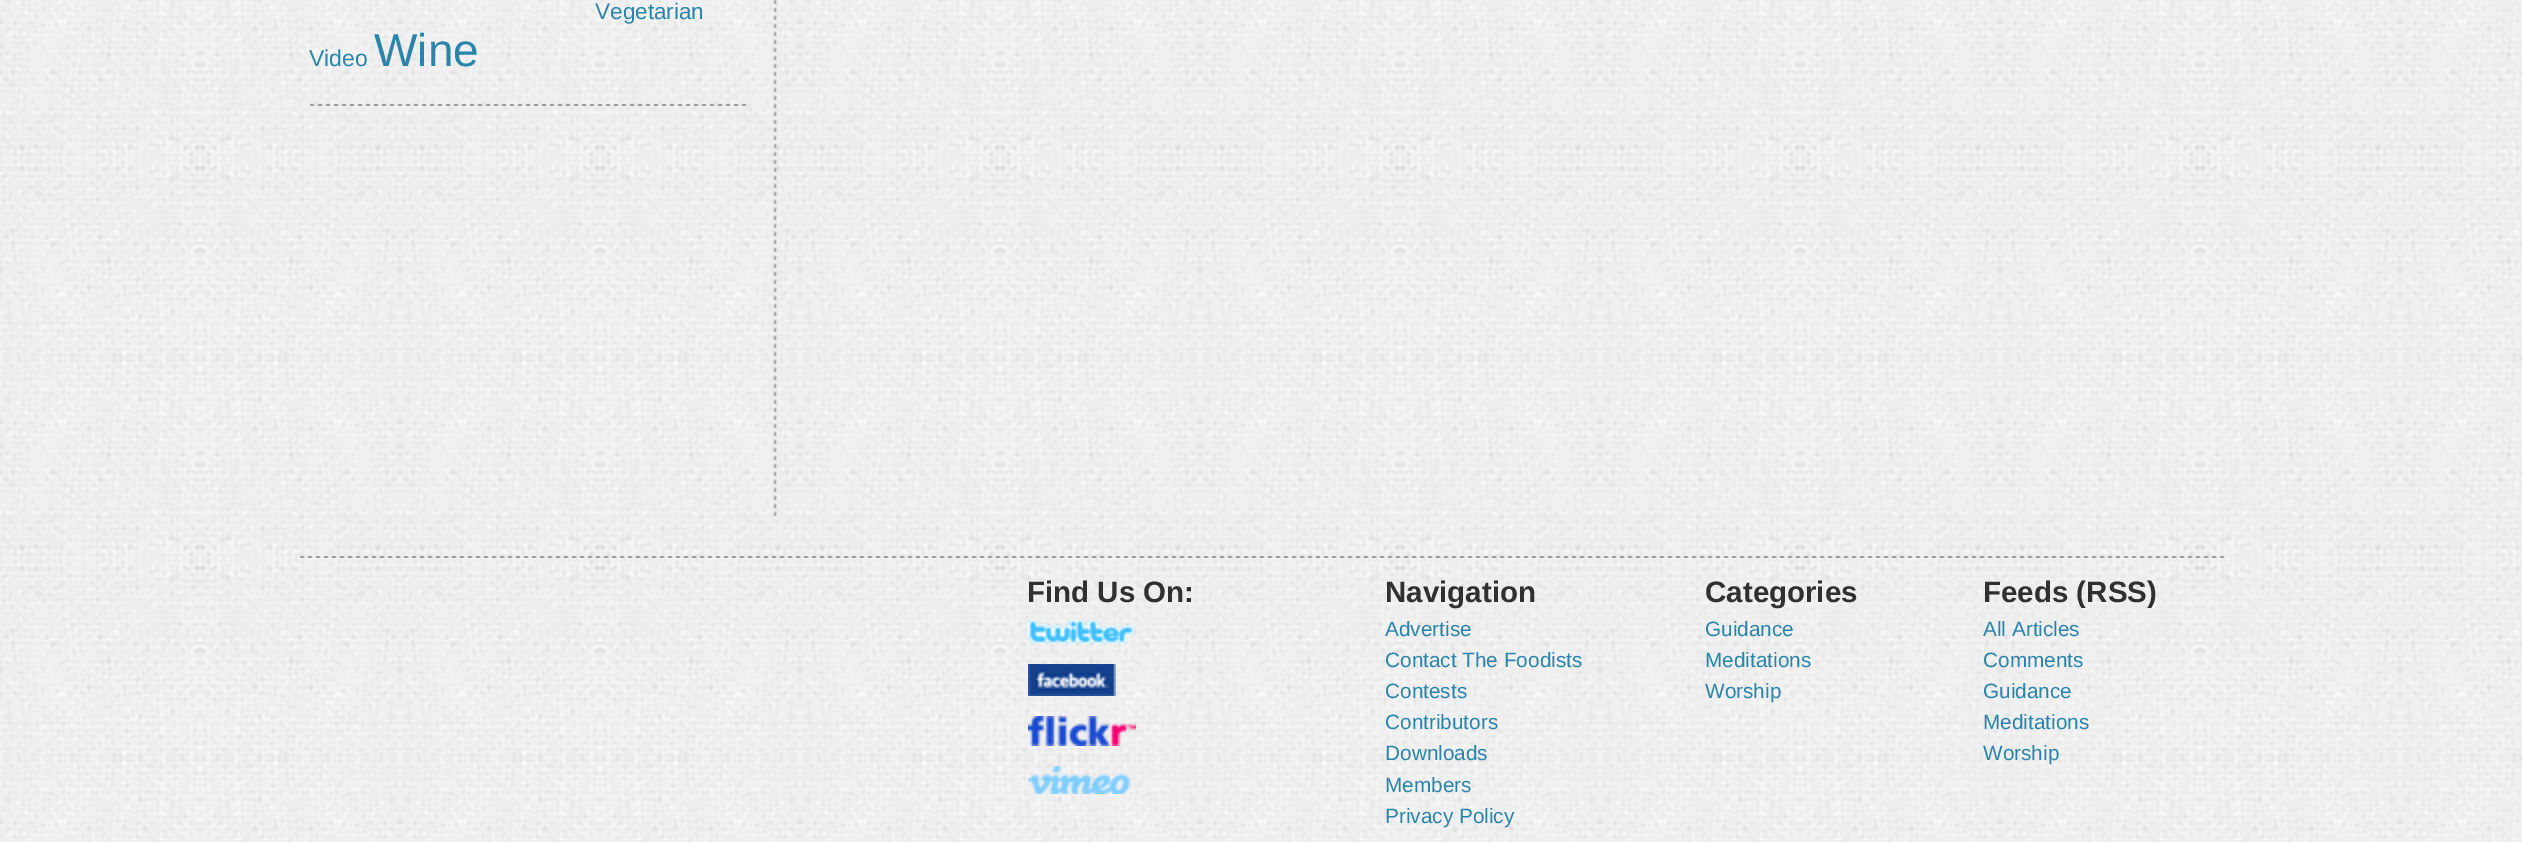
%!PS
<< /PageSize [2522 842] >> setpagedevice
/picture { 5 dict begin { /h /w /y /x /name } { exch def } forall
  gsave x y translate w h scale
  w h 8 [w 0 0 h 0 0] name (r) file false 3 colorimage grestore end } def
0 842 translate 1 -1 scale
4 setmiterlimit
1 setgray
0 0 2522 842 rectfill
(img1.rgb) 0 0 2522 842 picture
(img2.rgb) 773 0 4 516 picture
/LiberationSans-Regular [22.5 0 0 -22.5 0 0] selectfont
0.169 0.522 0.667 setrgbcolor
595 19 moveto (Vegetarian) show
/LiberationSans-Regular [23 0 0 -23 0 0] selectfont
309 66 moveto (Video) show
/LiberationSans-Regular [46 0 0 -46 0 0] selectfont
374 66 moveto (Wine) show
(img3.rgb) 310 104 440 2 picture
(img4.rgb) 300 556 1924 2 picture
/LiberationSans-Bold [29.5 0 0 -29.5 0 0] selectfont
0.188 setgray
1027 602 moveto (Find Us On:) show
(img5.rgb) 1028 620 108 24 picture
(img6.rgb) 1028 664 88 32 picture
(img7.rgb) 1028 716 108 30 picture
(img8.rgb) 1028 766 103 28 picture
1385 602 moveto (Navigation) show
/LiberationSans-Regular [20.75 0 0 -20.75 0 0] selectfont
0.169 0.522 0.667 setrgbcolor
1385 636 moveto (Advertise) show
1385 667 moveto (Contact The Foodists) show
1385 698 moveto (Contests) show
1385 729 moveto (Contributors) show
1385 760 moveto (Downloads) show
1385 792 moveto (Members) show
1385 823 moveto (Privacy Policy) show
/LiberationSans-Bold [29.5 0 0 -29.5 0 0] selectfont
0.188 setgray
1705 602 moveto (Categories) show
/LiberationSans-Regular [20.75 0 0 -20.75 0 0] selectfont
0.169 0.522 0.667 setrgbcolor
1705 636 moveto (Guidance) show
1705 667 moveto (Meditations) show
1705 698 moveto (Worship) show
/LiberationSans-Bold [29.5 0 0 -29.5 0 0] selectfont
0.188 setgray
1983 602 moveto (Feeds \(RSS\)) show
/LiberationSans-Regular [20.75 0 0 -20.75 0 0] selectfont
0.169 0.522 0.667 setrgbcolor
1983 636 moveto (All Articles) show
1983 667 moveto (Comments) show
1983 698 moveto (Guidance) show
1983 729 moveto (Meditations) show
1983 760 moveto (Worship) show
showpage
